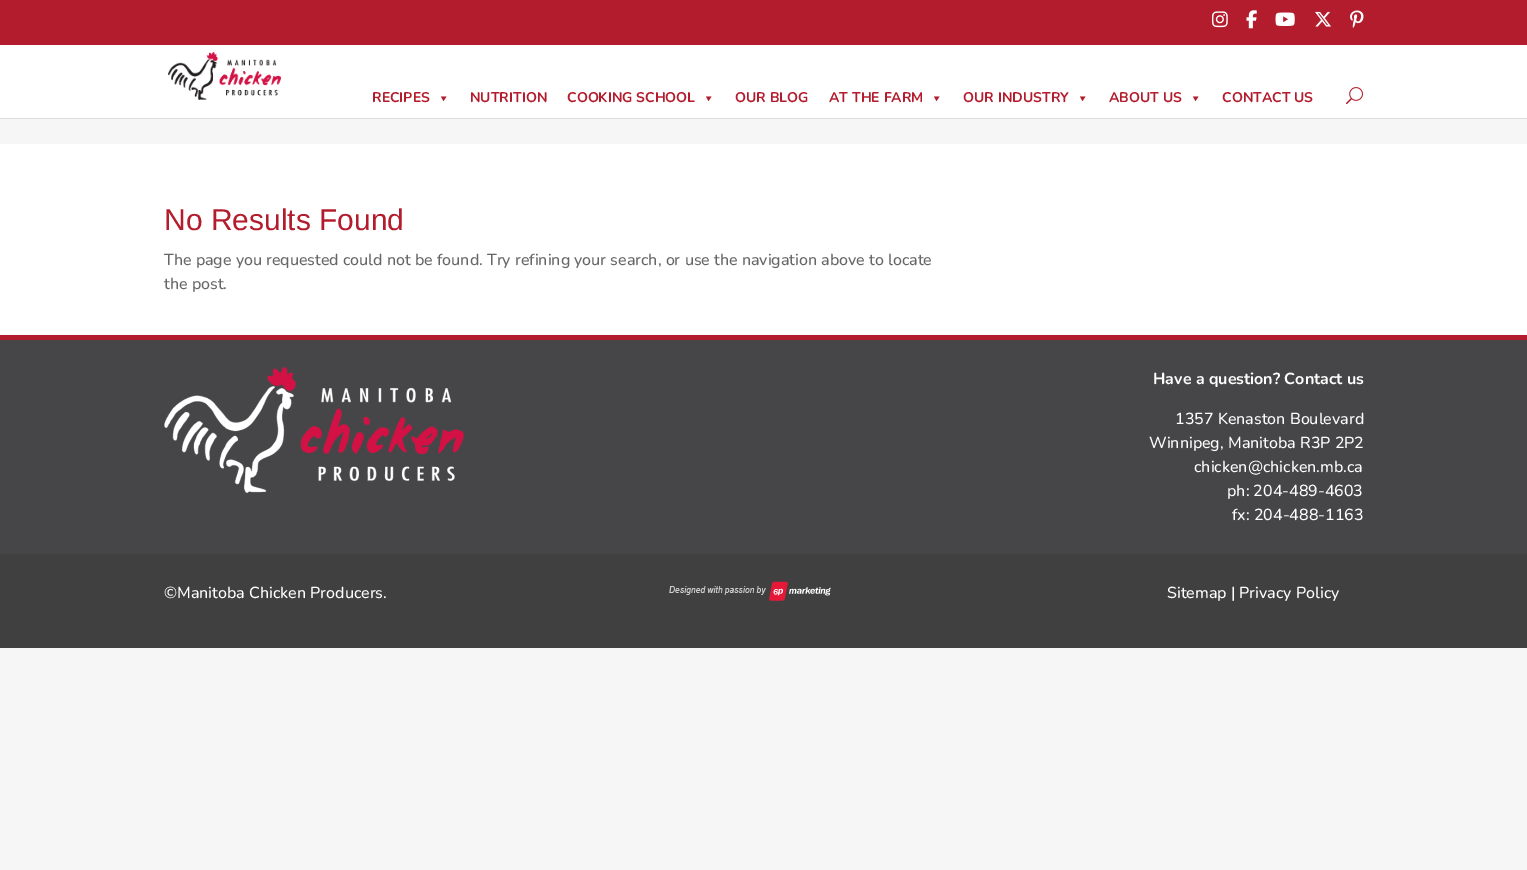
%!PS
<< /PageSize [1527 870] >> setpagedevice
/picture { 5 dict begin { /h /w /y /x /name } { exch def } forall
  gsave x y translate w h scale
  w h 8 [w 0 0 h 0 0] name (r) file false 3 colorimage grestore end } def
0 870 translate 1 -1 scale
4 setmiterlimit
0.965 setgray
0 0 1527 870 rectfill
0.702 0.11 0.176 setrgbcolor
0 0 1527 45 rectfill
(img1.rgb) 1212 11 16 17 picture
(img2.rgb) 1246 10 11 19 picture
(img3.rgb) 1275 12 20 14 picture
(img4.rgb) 1315 11 16 16 picture
(img5.rgb) 1350 10 14 18 picture
0.867 setgray
0 118 1527 1 rectfill
1 setgray
0 45 1527 73 rectfill
(img6.rgb) 168 52 113 48 picture
/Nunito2-ExtraLight [14 0 0 -14 0 0] selectfont
0.702 0.11 0.176 setrgbcolor
372 102 moveto (RECIPES) show
newpath 446.5 96.5 moveto 443.5 101 lineto 441 96.5 lineto closepath fill
470 102 moveto (NUTRITION) show
567 102 moveto (COOKING SCHOOL) show
newpath 711.5 96.5 moveto 708.5 101 lineto 706 96.5 lineto closepath fill
735 102 moveto (OUR BLOG) show
829 102 moveto (AT THE FARM) show
newpath 939.5 96.5 moveto 936.5 101 lineto 934 96.5 lineto closepath fill
963 102 moveto (OUR INDUSTRY) show
newpath 1085.5 96.5 moveto 1082.5 101 lineto 1080 96.5 lineto closepath fill
1109 102 moveto (ABOUT US) show
newpath 1198.5 96.5 moveto 1195.5 101 lineto 1193 96.5 lineto closepath fill
1222 102 moveto (CONTACT US) show
(img7.rgb) 1346 87 17 18 picture
1 setgray
0 144 1527 191 rectfill
/LiberationSans-Regular [30 0 0 -30 0 0] selectfont
0.702 0.11 0.176 setrgbcolor
164 230 moveto (No Results Found) show
/Nunito-ExtraLight [16 0 0 -16 0 0] selectfont
0.4 setgray
164 265 moveto (The page you requested could not be found. Try refining your search, or use the navigation above to locate) show
164 289 moveto (the post.) show
0.275 0.275 0.282 setrgbcolor
0 340 1527 214 rectfill
0.702 0.11 0.176 setrgbcolor
0 335 1527 5 rectfill
(img8.rgb) 164 367 300 126 picture
/Nunito2-ExtraLight [16 0 0 -16 0 0] selectfont
1 setgray
1153 384 moveto (Have a question? Contact us) show
/Nunito-ExtraLight [16 0 0 -16 0 0] selectfont
1175 424 moveto (1357 Kenaston Boulevard) show
1149 448 moveto (Winnipeg, Manitoba R3P 2P2) show
1194 472 moveto (chicken@chicken.mb.ca) show
1227 496 moveto (ph: 204-489-4603) show
1232 520 moveto (fx: 204-488-1163) show
0.251 0.251 0.255 setrgbcolor
0 554 1527 94 rectfill
1 setgray
164 598 moveto (©Manitoba Chicken Producers.) show
(img9.rgb) 669 581 162 20 picture
1167 598 moveto (Sitemap | Privacy Policy) show
showpage
